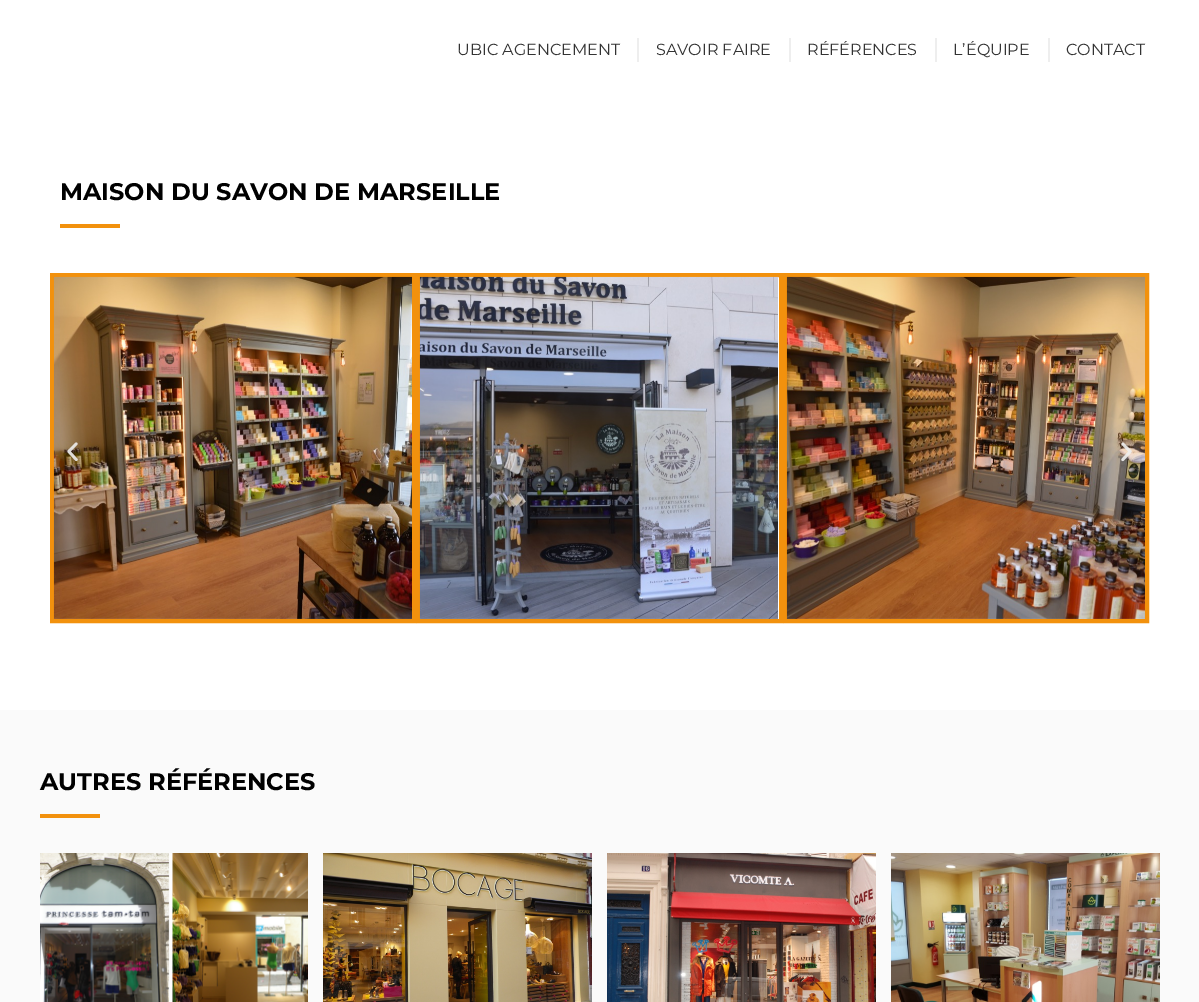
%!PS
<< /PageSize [1199 1002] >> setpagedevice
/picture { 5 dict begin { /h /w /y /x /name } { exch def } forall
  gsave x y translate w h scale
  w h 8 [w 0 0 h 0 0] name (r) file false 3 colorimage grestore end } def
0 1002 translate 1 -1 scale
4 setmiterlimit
1 setgray
0 0 1199 1002 rectfill
/Montserrat-Regular [16 0 0 -16 0 0] selectfont
0.2 setgray
457 55 moveto (UBIC AGENCEMENT) show
0.933 setgray
637 38 2 24 rectfill
0.2 setgray
656 55 moveto (SAVOIR FAIRE) show
0.933 setgray
789 38 2 24 rectfill
0.2 setgray
807 55 moveto (RÉFÉRENCES) show
0.933 setgray
935 38 2 24 rectfill
0.2 setgray
953 55 moveto (L’ÉQUIPE) show
0.933 setgray
1048 38 2 24 rectfill
0.2 setgray
1066 55 moveto (CONTACT) show
/Montserrat-Bold [24 0 0 -24 0 0] selectfont
0 setgray
60 200 moveto (MAISON DU SAVON DE MARSEILLE) show
0.949 0.569 0.051 setrgbcolor
60 224 60 4 rectfill
4 setlinewidth
52 275 362 346 rectstroke
(img1.rgb) 53 276 359 343 picture
418 275 363 346 rectstroke
(img2.rgb) 419 276 359 343 picture
785 275 362 346 rectstroke
(img3.rgb) 786 276 359 343 picture
(img4.rgb) 67 442 11 20 picture
(img5.rgb) 1121 442 11 20 picture
0.98 setgray
0 710 1199 292 rectfill
0 setgray
40 790 moveto (AUTRES RÉFÉRENCES) show
0.949 0.569 0.051 setrgbcolor
40 814 60 4 rectfill
(img6.rgb) 40 853 268 149 picture
(img7.rgb) 323 853 269 149 picture
(img8.rgb) 607 853 269 149 picture
(img9.rgb) 891 853 269 149 picture
showpage
